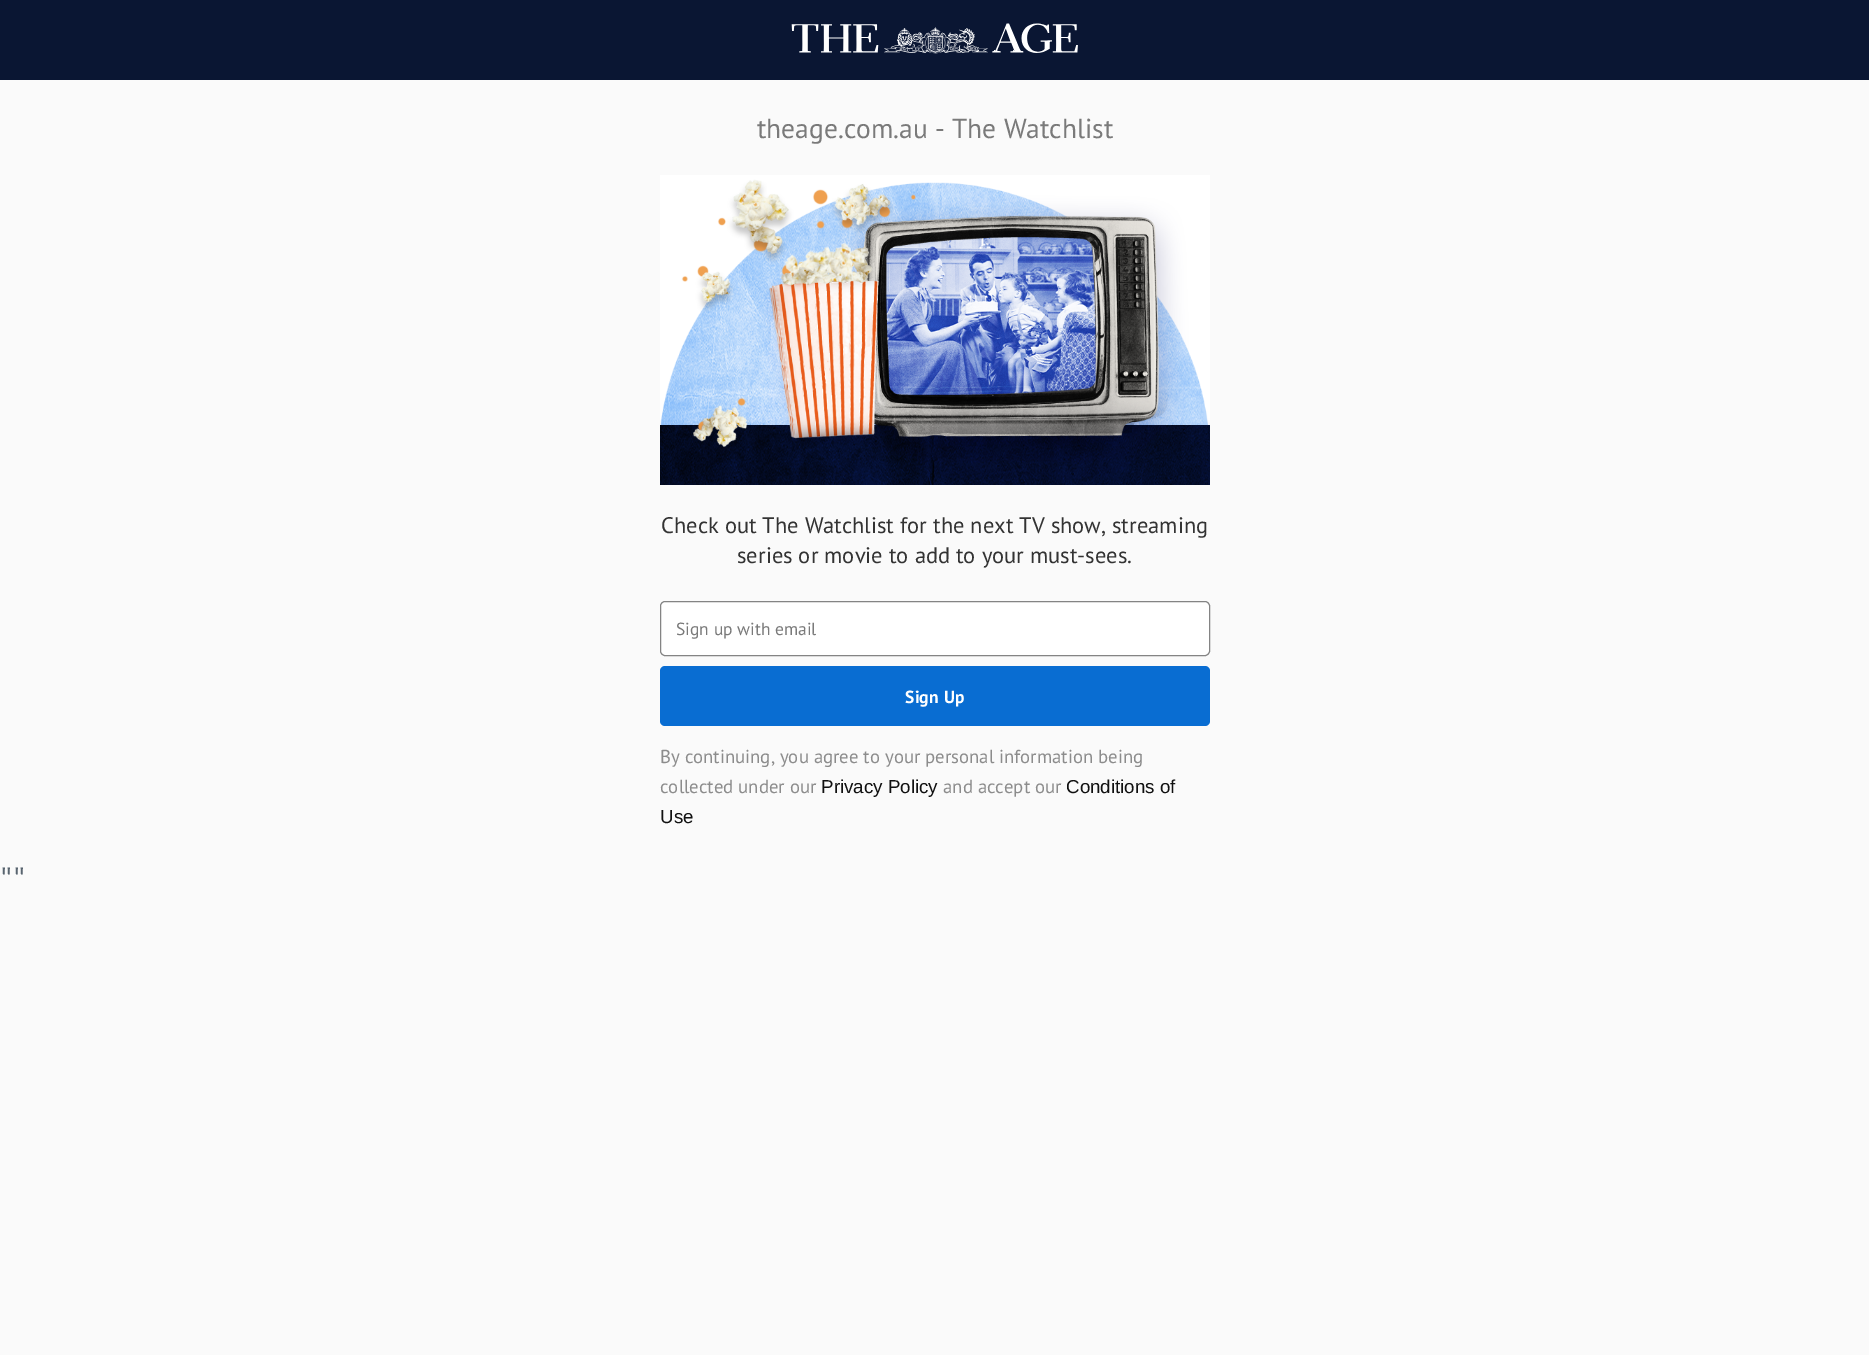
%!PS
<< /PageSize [1869 1355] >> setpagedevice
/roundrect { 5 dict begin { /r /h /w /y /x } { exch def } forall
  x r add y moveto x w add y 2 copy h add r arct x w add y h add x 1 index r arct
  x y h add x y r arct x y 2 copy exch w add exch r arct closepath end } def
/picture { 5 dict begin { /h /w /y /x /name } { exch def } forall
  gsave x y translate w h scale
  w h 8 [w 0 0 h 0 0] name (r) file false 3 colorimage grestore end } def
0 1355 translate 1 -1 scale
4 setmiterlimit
0.98 setgray
0 0 1869 1355 rectfill
0.039 0.086 0.2 setrgbcolor
0 0 1869 80 rectfill
(img1.rgb) 791 23 287 31 picture
/PTSans-Regular [27.5 0 0 -27.5 0 0] selectfont
0.478 setgray
757 138 moveto (theage.com.au - The Watchlist) show
(img2.rgb) 660 175 550 310 picture
/PTSans-Regular [22.5 0 0 -22.5 0 0] selectfont
0.2 setgray
661 533 moveto (Check out The Watchlist for the next TV show, streaming) show
737 563 moveto (series or movie to add to your must-sees.) show
1 setgray
660.5 601.5 549 54 4.5 roundrect gsave fill grestore
0.518 setgray
stroke
/PTSans-Regular [17.5 0 0 -17.5 0 0] selectfont
0.478 setgray
676 635 moveto (Sign up with email) show
0.035 0.427 0.824 setrgbcolor
660 666 550 60 5 roundrect fill
/PTSans-Bold [17.5 0 0 -17.5 0 0] selectfont
1 setgray
905 703 moveto 0.25 0 (Sign Up) ashow
/PTSans-Regular [18.75 0 0 -18.75 0 0] selectfont
0.549 setgray
660 763 moveto (By continuing, you agree to your personal information being) show
660 793 moveto (collected under our) show
/LiberationSans-Regular [18.75 0 0 -18.75 0 0] selectfont
0.067 setgray
821 793 moveto (Privacy Policy) show
/PTSans-Regular [18.75 0 0 -18.75 0 0] selectfont
0.549 setgray
943 793 moveto (and accept our) show
/LiberationSans-Regular [18.75 0 0 -18.75 0 0] selectfont
0.067 setgray
1066 793 moveto (Conditions of) show
660 823 moveto (Use) show
/MerriweatherSans-Regular [20 0 0 -20 0 0] selectfont
0.345 0.392 0.435 setrgbcolor
0 884 moveto ("") show
showpage
